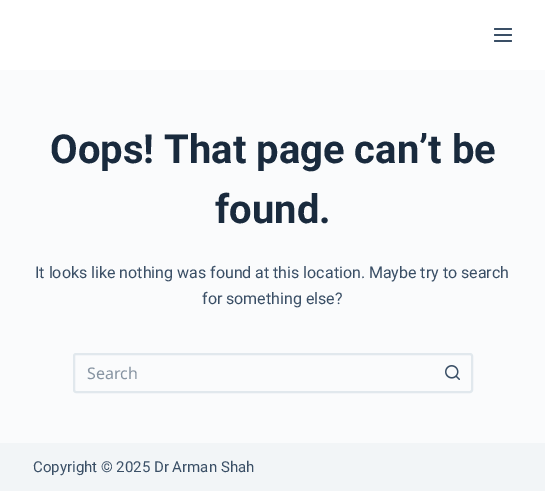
%!PS
<< /PageSize [545 491] >> setpagedevice
/roundrect { 5 dict begin { /r /h /w /y /x } { exch def } forall
  x r add y moveto x w add y 2 copy h add r arct x w add y h add x 1 index r arct
  x y h add x y r arct x y 2 copy exch w add exch r arct closepath end } def
/picture { 5 dict begin { /h /w /y /x /name } { exch def } forall
  gsave x y translate w h scale
  w h 8 [w 0 0 h 0 0] name (r) file false 3 colorimage grestore end } def
0 491 translate 1 -1 scale
4 setmiterlimit
0.98 0.984 0.988 setrgbcolor
0 0 545 491 rectfill
1 setgray
0 0 545 70 rectfill
0.227 0.31 0.4 setrgbcolor
494 28 18 2 1 roundrect fill
494 34 18 2 1 roundrect fill
494 40 18 2 1 roundrect fill
/Roboto-Bold [40 0 0 -40 0 0] selectfont
0.098 0.165 0.239 setrgbcolor
50 163 moveto (Oops! That page can’t be) show
215 223 moveto (found.) show
/Roboto-Regular [16 0 0 -16 0 0] selectfont
0.227 0.31 0.4 setrgbcolor
35 278 moveto (It looks like nothing was found at this location. Maybe try to search) show
202 304 moveto (for something else?) show
0.882 0.91 0.929 setrgbcolor
2 setlinewidth
74 354 398 38 2 roundrect stroke
/NotoSans-Regular [16 0 0 -16 0 0] selectfont
0.529 0.58 0.635 setrgbcolor
87 379 moveto (Search) show
(img1.rgb) 445 365 15 15 picture
0.949 0.961 0.969 setrgbcolor
0 443 545 48 rectfill
/Roboto-Regular [15 0 0 -15 0 0] selectfont
0.227 0.31 0.4 setrgbcolor
33 472 moveto (Copyright © 2025 Dr Arman Shah) show
showpage
